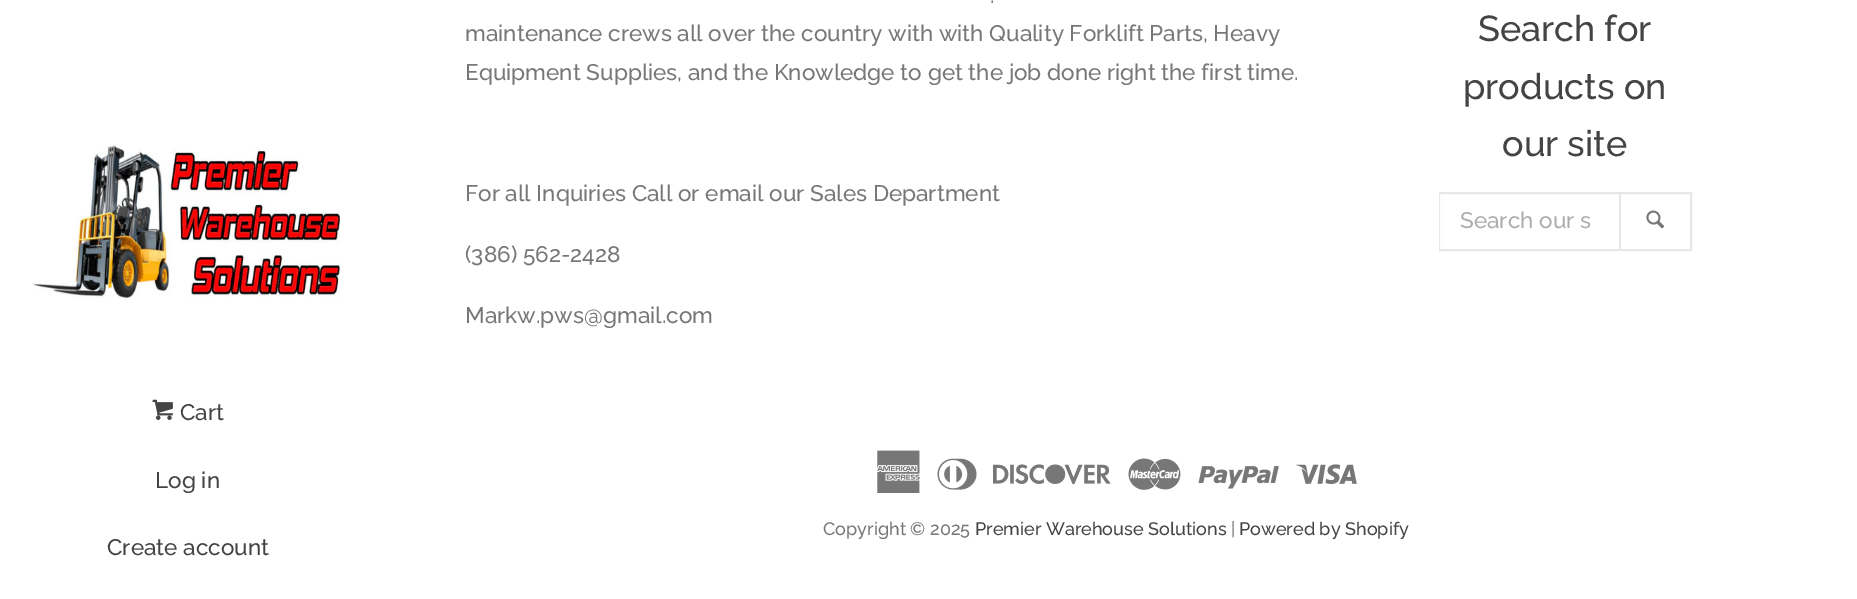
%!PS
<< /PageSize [1857 599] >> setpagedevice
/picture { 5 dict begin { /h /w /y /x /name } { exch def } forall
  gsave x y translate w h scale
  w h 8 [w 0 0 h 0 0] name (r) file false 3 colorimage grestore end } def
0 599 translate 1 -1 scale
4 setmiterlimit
1 setgray
0 0 1857 599 rectfill
(img1.rgb) 33 144 308 156 picture
(img2.rgb) 152 399 21 21 picture
/Raleway-Medium [22.5 0 0 -22.5 0 0] selectfont
0.267 setgray
180 420 moveto (Cart) show
155 488 moveto (Log in) show
107 555 moveto (Create account) show
0.467 setgray
990 3 moveto (.) show
465 41 moveto (maintenance crews all over the country with with Quality Forklift Parts, Heavy) show
465 80 moveto (Equipment Supplies, and the Knowledge to get the job done right the first time.) show
465 201 moveto (For all Inquiries Call or email our Sales Department) show
465 262 moveto (\(386\) 562-2428) show
465 323 moveto (Markw.pws@gmail.com) show
/Raleway-Medium [36 0 0 -36 0 0] selectfont
0.267 setgray
1478 41 moveto (Search for) show
1463 99 moveto (products on) show
1502 156 moveto (our site) show
0.906 setgray
2 setlinewidth
1440 193 251 57 rectstroke
1 setgray
1440 194 1 55 rectfill
0.906 setgray
1619 194 2 55 rectfill
/Raleway-Medium [22.5 0 0 -22.5 0 0] selectfont
0.678 setgray
1460 228 moveto (Search our s) show
(img3.rgb) 1646 210 19 19 picture
(img4.rgb) 877 450 43 43 picture
(img5.rgb) 937 458 40 32 picture
(img6.rgb) 993 464 118 21 picture
(img7.rgb) 1128 458 53 32 picture
(img8.rgb) 1198 466 81 23 picture
(img9.rgb) 1296 464 61 20 picture
/Raleway-Medium [18 0 0 -18 0 0] selectfont
0.467 setgray
823 535 moveto (Copyright © 2025) show
0.267 setgray
975 535 moveto (Premier Warehouse Solutions) show
0.467 setgray
1231 535 moveto (|) show
0.267 setgray
1239 535 moveto (Powered by Shopify) show
showpage
